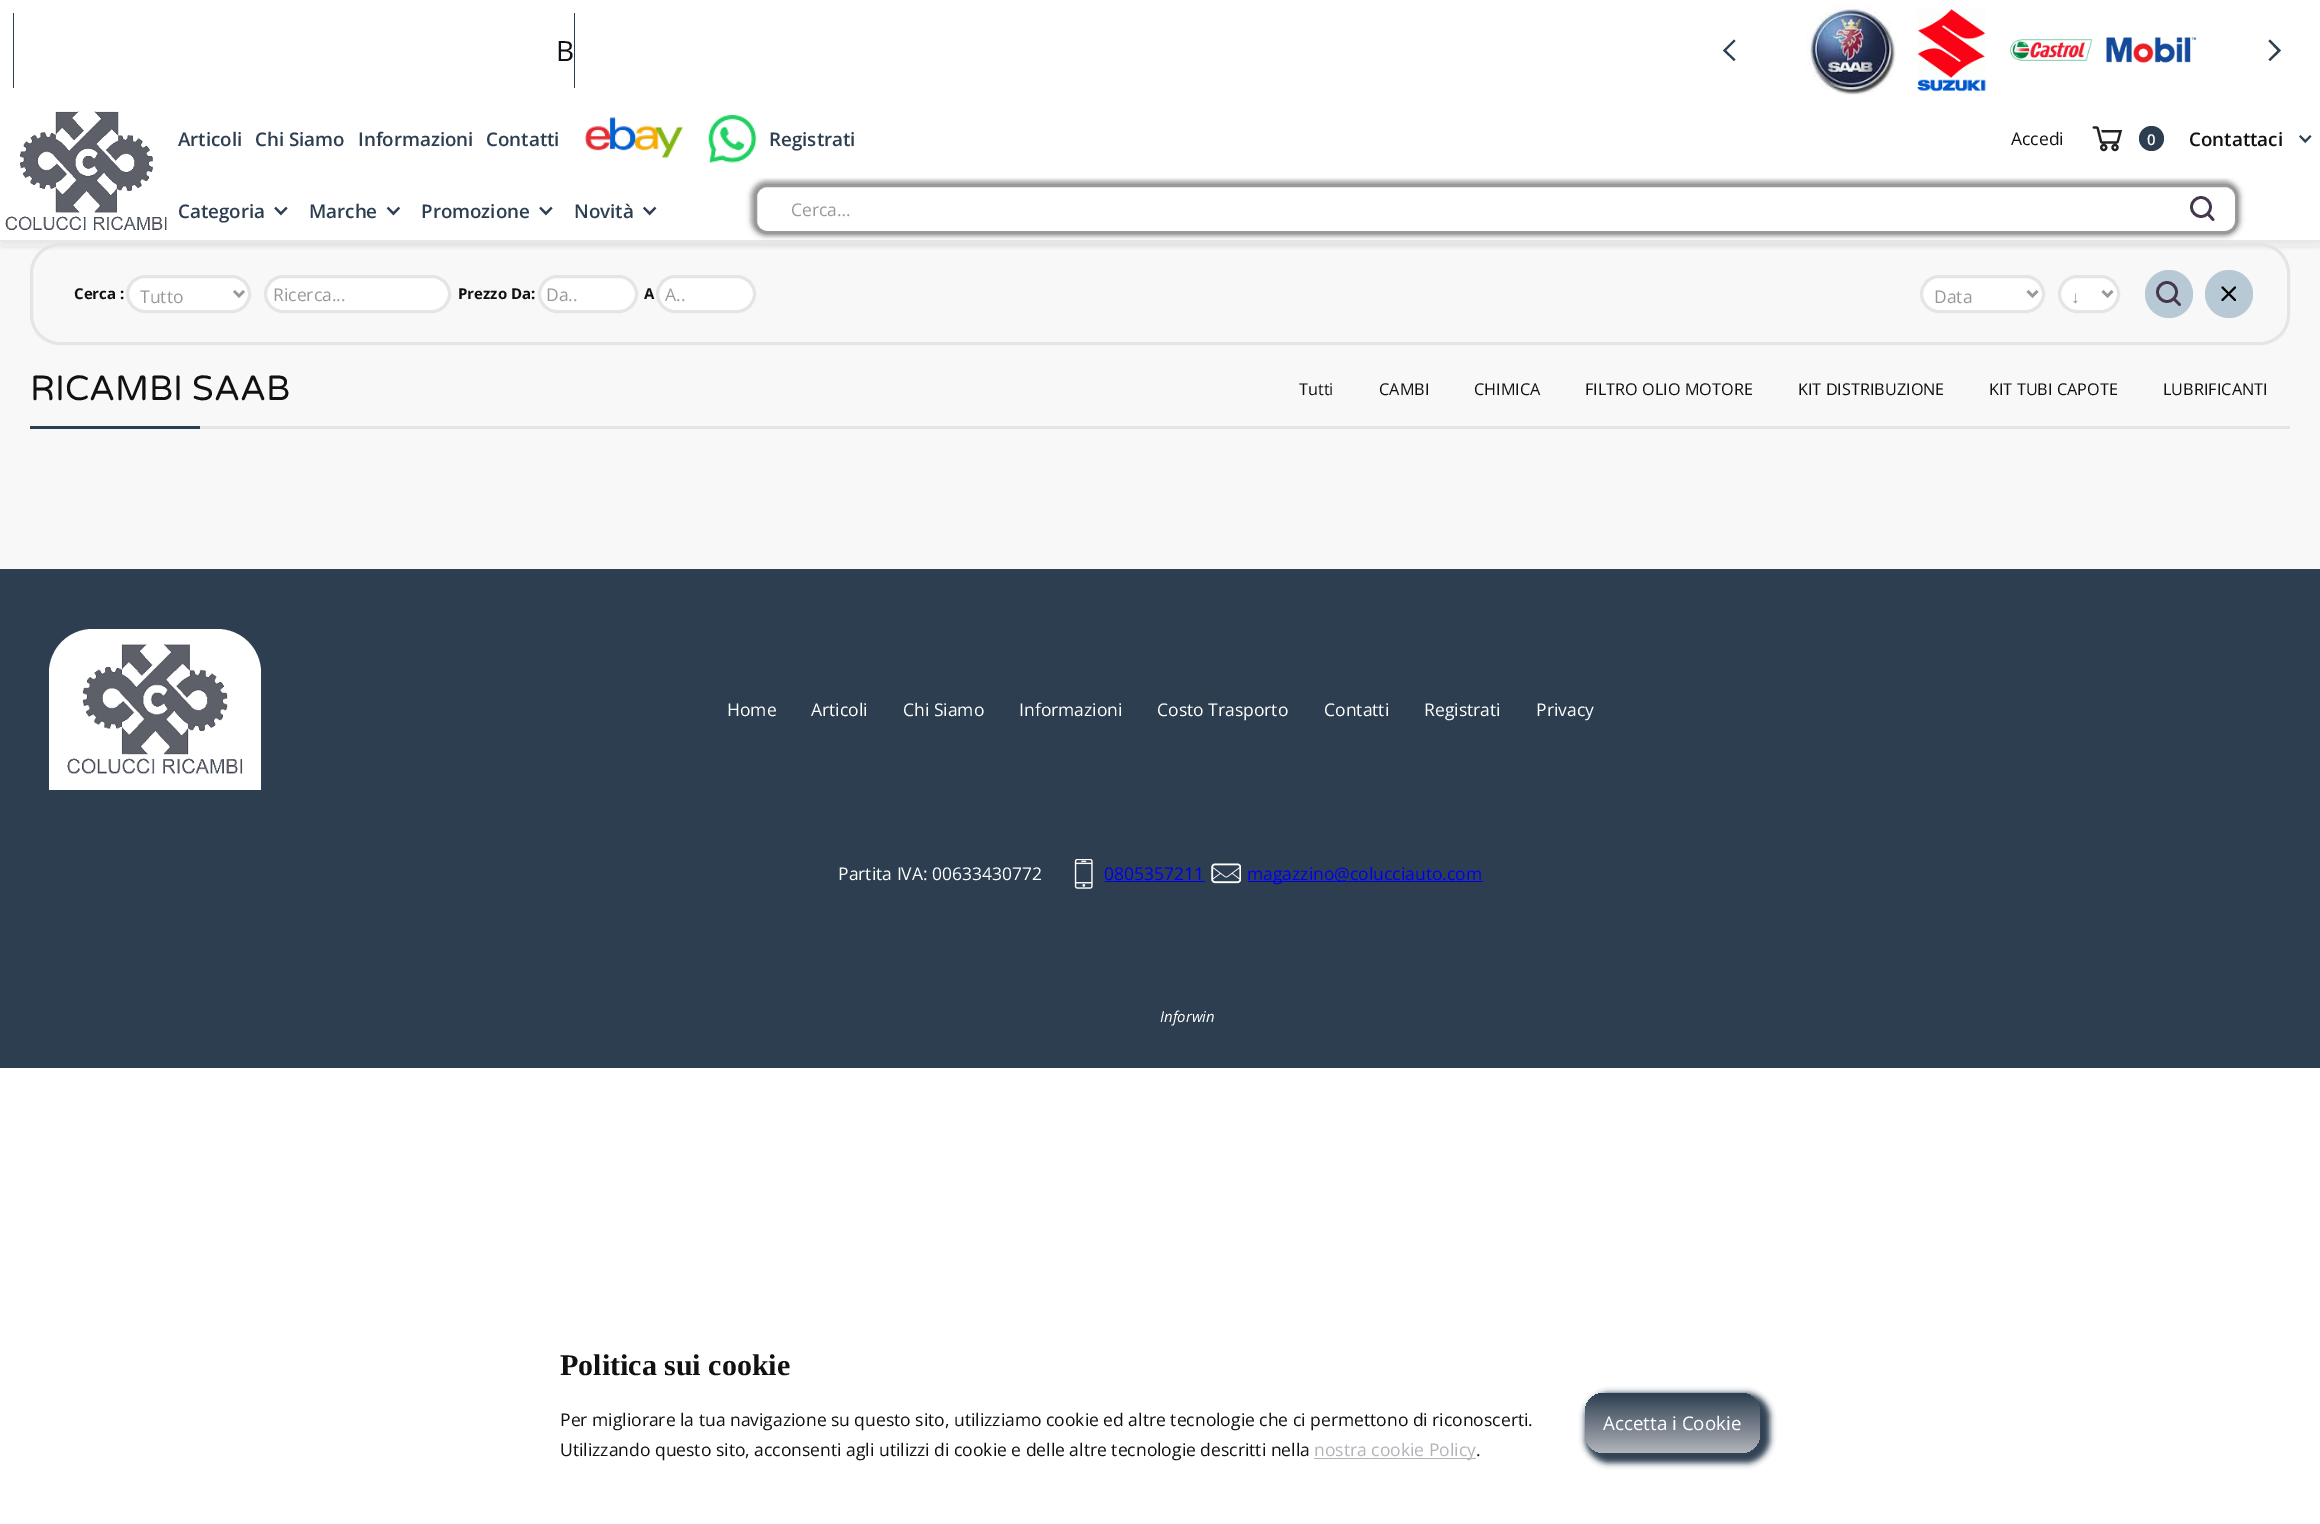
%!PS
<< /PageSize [2320 1524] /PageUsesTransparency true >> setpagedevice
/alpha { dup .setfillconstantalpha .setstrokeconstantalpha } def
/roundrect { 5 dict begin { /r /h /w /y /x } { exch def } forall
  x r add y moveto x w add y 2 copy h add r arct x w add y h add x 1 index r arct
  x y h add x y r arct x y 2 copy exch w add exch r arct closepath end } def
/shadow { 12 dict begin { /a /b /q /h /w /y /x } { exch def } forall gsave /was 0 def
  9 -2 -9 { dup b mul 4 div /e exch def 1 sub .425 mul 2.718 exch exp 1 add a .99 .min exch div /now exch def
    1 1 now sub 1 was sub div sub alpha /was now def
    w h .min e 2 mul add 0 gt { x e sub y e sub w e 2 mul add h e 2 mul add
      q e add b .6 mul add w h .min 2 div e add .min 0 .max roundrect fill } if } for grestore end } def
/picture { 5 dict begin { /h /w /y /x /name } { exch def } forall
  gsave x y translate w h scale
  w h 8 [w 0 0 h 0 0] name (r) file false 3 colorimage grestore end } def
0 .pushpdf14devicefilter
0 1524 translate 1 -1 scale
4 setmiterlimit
1 setgray
0 0 2320 1524 rectfill
0.973 setgray
0 240 2320 329 rectfill
gsave
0 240 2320 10 rectclip
0 setgray
1 1 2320 240 0 9.5 0.12 shadow
grestore
0.173 0.243 0.314 setrgbcolor
574 13 1 75 rectfill
13 13 1 75 rectfill
/OpenSans-Regular [28 0 0 -28 0 0] selectfont
0.067 setgray
556 61 moveto 1 0 (B) ashow
0.173 0.243 0.314 setrgbcolor
newpath 1723 50.5 moveto 1734 39.5 lineto 1735.5 41 lineto 1726 50.5 lineto 1735.5 59.5 lineto 1734 61 lineto closepath fill
(img1.rgb) 1806 5 90 90 picture
(img2.rgb) 1917 9 69 83 picture
(img3.rgb) 2010 39 83 22 picture
(img4.rgb) 2106 37 91 26 picture
newpath 2281 50.5 moveto 2270 39.5 lineto 2268.5 41 lineto 2277.5 50.5 lineto 2268.5 59.5 lineto 2270 61 lineto closepath fill
(img5.rgb) 5 111 162 119 picture
0.898 setgray
3 setlinewidth
31.5 244.5 2257 99 28.5 roundrect stroke
0.6 setgray
751 181 1489 55 15 2.5 1 shadow
1 setgray
759 176 1473 2 rectfill
/OpenSans-SemiBold [18.75 0 0 -18.75 0 0] selectfont
0.173 0.243 0.314 setrgbcolor
178 146 moveto (Articoli) show
255 146 moveto (Chi Siamo) show
358 146 moveto (Informazioni) show
486 146 moveto (Contatti) show
(img6.rgb) 584 117 99 41 picture
(img7.rgb) 708 115 49 48 picture
769 146 moveto (Registrati) show
/OpenSans-Regular [17.5 0 0 -17.5 0 0] selectfont
0.067 setgray
2011 145 moveto (Accedi) show
(img8.rgb) 2092 126 31 26 picture
0.173 0.243 0.314 setrgbcolor
newpath 2151.5 138.5 12.5 0 360 arc closepath fill
/OpenSans-SemiBold [15 0 0 -15 0 0] selectfont
1 setgray
2147 145 moveto (0) show
/OpenSans-SemiBold [18.75 0 0 -18.75 0 0] selectfont
0.067 setgray
2189 146 moveto (Contattaci) show
(img9.rgb) 2299 135 13 9 picture
0.173 0.243 0.314 setrgbcolor
178 218 moveto (Categoria) show
(img10.rgb) 274 206 14 10 picture
309 218 moveto (Marche) show
(img11.rgb) 386 206 15 10 picture
421 218 moveto (Promozione) show
(img10.rgb) 539 206 14 10 picture
574 218 moveto (Novità) show
(img12.rgb) 643 206 14 10 picture
1 setgray
755.5 185.5 1481 47 11.5 roundrect gsave fill grestore
0.6 setgray
stroke
/OpenSans-Regular [17.5 0 0 -17.5 0 0] selectfont
791 216 moveto (Cerca…) show
0.267 0.216 0.302 setrgbcolor
2.7 setlinewidth
1 setlinecap
1 setlinejoin
newpath 2213 219.5 moveto 2208 214 lineto stroke
0 setlinecap
0 setlinejoin
newpath 2201 207 9.5 0 360 arc closepath stroke
/OpenSans-Bold [15 0 0 -15 0 0] selectfont
0.067 setgray
74 299 moveto (Cerca :) show
1 setgray
127.5 276.5 122 35 17.5 roundrect gsave fill grestore
0.898 setgray
3 setlinewidth
stroke
0.6 setgray
2.5 setlinewidth
newpath 234 291 moveto 239 296 lineto 244 291 lineto stroke
/OpenSans-Regular [17.5 0 0 -17.5 0 0] selectfont
140 303 moveto (Tutto) show
1 setgray
265.5 276.5 184 35 17.5 roundrect gsave fill grestore
0.898 setgray
3 setlinewidth
stroke
0.6 setgray
273 301 moveto (Ricerca...) show
/OpenSans-Bold [15 0 0 -15 0 0] selectfont
0.067 setgray
458 299 moveto (Prezzo Da:) show
1 setgray
539.5 276.5 97 35 17.5 roundrect gsave fill grestore
0.898 setgray
stroke
/OpenSans-Regular [17.5 0 0 -17.5 0 0] selectfont
0.6 setgray
546 301 moveto (Da..) show
/OpenSans-Bold [15 0 0 -15 0 0] selectfont
0.067 setgray
644 299 moveto (A) show
1 setgray
657.5 276.5 97 35 17.5 roundrect gsave fill grestore
0.898 setgray
stroke
/OpenSans-Regular [17.5 0 0 -17.5 0 0] selectfont
0.6 setgray
665 301 moveto (A..) show
1 setgray
1921.5 276.5 122 35 17.5 roundrect gsave fill grestore
0.898 setgray
stroke
0.6 setgray
2.5 setlinewidth
newpath 2027.5 291 moveto 2032.5 296 lineto 2037.5 291 lineto stroke
1934 303 moveto (Data) show
1 setgray
2059.5 276.5 59 35 17.5 roundrect gsave fill grestore
0.898 setgray
3 setlinewidth
stroke
0.6 setgray
2.5 setlinewidth
newpath 2102.5 291 moveto 2107.5 296 lineto 2112.5 291 lineto stroke
/LiberationSans-Regular [17.5 0 0 -17.5 0 0] selectfont
2071 303 moveto (↓) show
0.714 0.788 0.831 setrgbcolor
newpath 2169 294 24 0 360 arc closepath fill
0.267 0.216 0.302 setrgbcolor
2.7 setlinewidth
1 setlinecap
1 setlinejoin
newpath 2179.5 304.5 moveto 2174 299 lineto stroke
0 setlinecap
0 setlinejoin
newpath 2167 292 9.5 0 360 arc closepath stroke
0.714 0.788 0.831 setrgbcolor
newpath 2229 294 24 0 360 arc closepath fill
0 setgray
2.1 setlinewidth
1 setlinecap
1 setlinejoin
newpath 2235 287.5 moveto 2222.5 300 lineto 2222.5 287.5 moveto 2235 300 lineto stroke
/VarelaRound-Regular [35 0 0 -35 0 0] selectfont
0.067 setgray
30 400 moveto (RICAMBI SAAB) show
/OpenSans-Regular [16.25 0 0 -16.25 0 0] selectfont
1299 395 moveto (Tutti) show
1379 395 moveto (CAMBI) show
1474 395 moveto (CHIMICA) show
1585 395 moveto (FILTRO OLIO MOTORE) show
1798 395 moveto (KIT DISTRIBUZIONE) show
1989 395 moveto (KIT TUBI CAPOTE) show
2163 395 moveto (LUBRIFICANTI) show
0.898 setgray
200 426 2090 3 rectfill
0.173 0.243 0.314 setrgbcolor
30 426 170 3 rectfill
0 569 2320 499 rectfill
1 setgray
newpath 93 629 moveto 217 629 lineto 241.5 629 261 648.5 261 673 curveto 261 790 lineto 49 790 lineto 49 673 lineto 49 648.5 68.5 629 93 629 curveto closepath fill
(img13.rgb) 67 643 176 131 picture
/OpenSans-Regular [17.5 0 0 -17.5 0 0] selectfont
727 716 moveto (Home) show
811 716 moveto (Articoli) show
903 716 moveto (Chi Siamo) show
1019 716 moveto (Informazioni) show
1157 716 moveto (Costo Trasporto) show
1324 716 moveto (Contatti) show
1424 716 moveto (Registrati) show
1536 716 moveto (Privacy) show
838 880 moveto (Partita IVA: 00633430772) show
(img14.rgb) 1074 859 19 30 picture
0 0 0.933 setrgbcolor
1104 880 moveto (0805357211) show
1105 881 100 1 rectfill
(img15.rgb) 1211 863 30 21 picture
1248 881 235 1 rectfill
1247 880 moveto (magazzino@colucciauto.com) show
/OpenSans-Italic [15 0 0 -15 0 0] selectfont
1 setgray
1160 1022 moveto (Inforwin) show
/LiberationSerif-Bold [30 0 0 -30 0 0] selectfont
0.067 setgray
560 1375 moveto (Politica sui cookie) show
/OpenSans-Regular [17.5 0 0 -17.5 0 0] selectfont
560 1426 moveto (Per migliorare la tua navigazione su questo sito, utilizziamo cookie ed altre tecnologie che ci permettono di riconoscerti.) show
560 1456 moveto (Utilizzando questo sito, acconsenti agli utilizzi di cookie e delle altre tecnologie descritti nella) show
0.698 0.706 0.729 setrgbcolor
1314 1458 162 1 rectfill
1314 1456 moveto (nostra cookie Policy) show
0.067 setgray
1476 1456 moveto (.) show
0.173 0.243 0.314 setrgbcolor
1585 1393 185 70 24 3 1 shadow
gsave 1585 1393 175 60 19 roundrect clip newpath
<< /ShadingType 2 /ColorSpace /DeviceRGB /Coords [1673 1393 1673 1453] /Extend [true true] /Function << /FunctionType 2 /Domain [0 1] /C0 [0.173 0.243 0.314] /C1 [0.698 0.706 0.729] /N 1 >> >> shfill grestore
/OpenSans-Regular [18.75 0 0 -18.75 0 0] selectfont
1 setgray
1603 1430 moveto (Accetta i Cookie) show
.poppdf14devicefilter showpage
